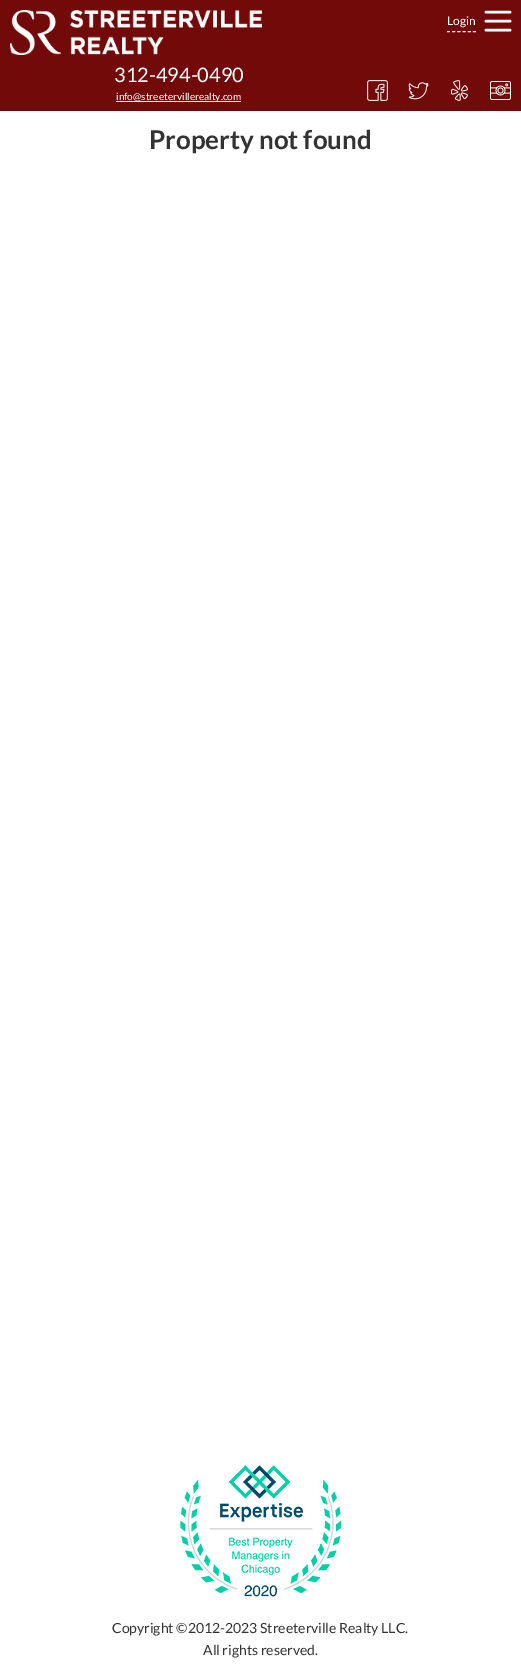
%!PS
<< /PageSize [521 1670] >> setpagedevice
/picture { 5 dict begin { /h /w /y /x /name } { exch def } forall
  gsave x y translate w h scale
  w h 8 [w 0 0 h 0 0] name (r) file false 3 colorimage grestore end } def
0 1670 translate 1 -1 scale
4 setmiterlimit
1 setgray
0 0 521 1670 rectfill
0.447 0.039 0.039 setrgbcolor
0 0 521 111 rectfill
1 setgray
[3 2.2] 0 setdash
newpath 447 31.5 moveto 476 31.5 lineto stroke
/Lato-Regular [12 0 0 -12 0 0] selectfont
447 25 moveto (Login) show
(img1.rgb) 10 10 51 45 picture
(img2.rgb) 70 10 192 45 picture
2.6 setlinewidth
1 setlinecap
1 setlinejoin
[] 0 setdash
newpath 486 12 moveto 510 12 lineto 486 21 moveto 510 21 lineto 486 30 moveto 510 30 lineto stroke
/Lato-Regular [20 0 0 -20 0 0] selectfont
114 82 moveto (312-494-0490) show
116 101 125 1 rectfill
/Lato-Regular [10 0 0 -10 0 0] selectfont
116 100 moveto (info@streetervillerealty.com) show
(img3.rgb) 367 80 21 21 picture
(img4.rgb) 408 82 21 18 picture
(img5.rgb) 451 80 17 21 picture
(img6.rgb) 490 81 21 19 picture
/Lato-Bold [26 0 0 -26 0 0] selectfont
0.2 setgray
149 149 moveto (Property not found) show
(img7.rgb) 180 1465 161 132 picture
/Lato-Regular [14 0 0 -14 0 0] selectfont
112 1633 moveto (Copyright ©2012-2023 Streeterville Realty LLC.) show
203 1655 moveto (All rights reserved.) show
showpage
